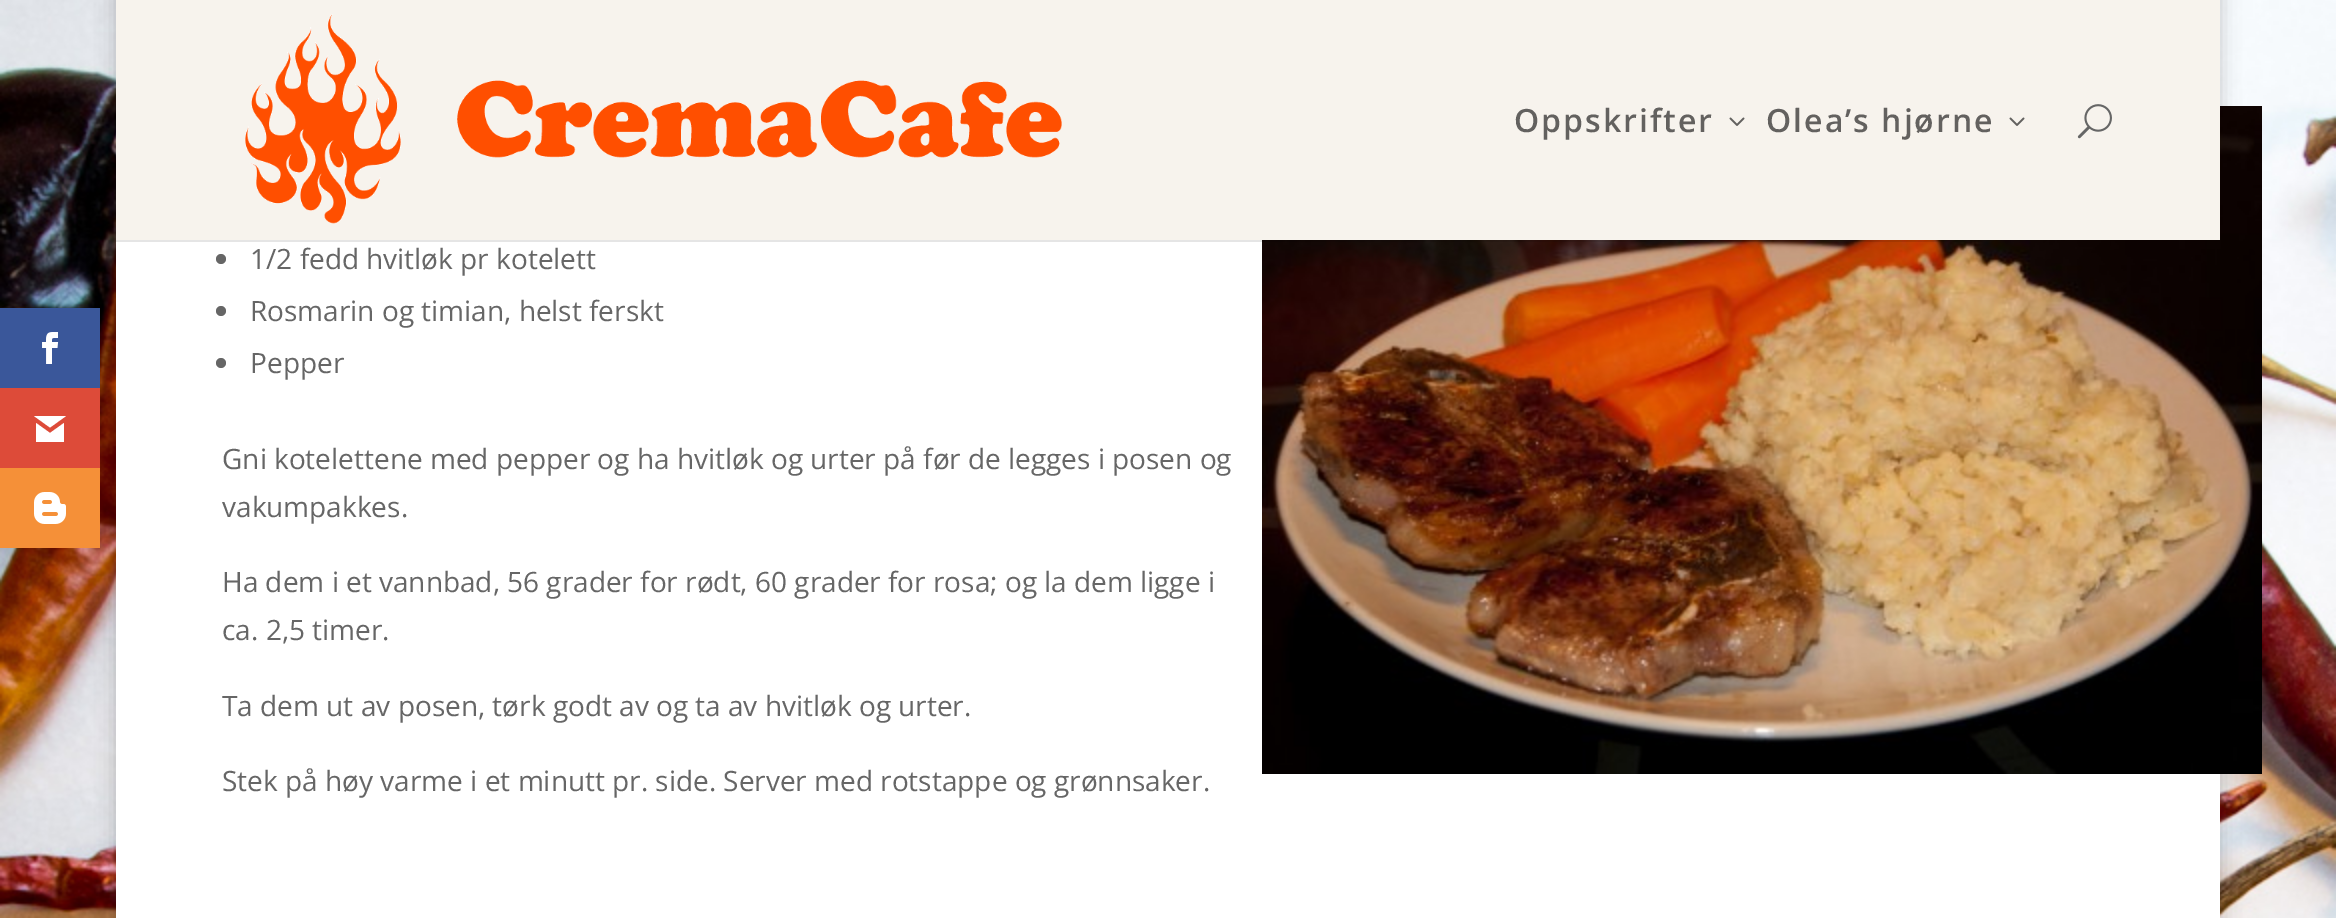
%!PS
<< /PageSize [2336 918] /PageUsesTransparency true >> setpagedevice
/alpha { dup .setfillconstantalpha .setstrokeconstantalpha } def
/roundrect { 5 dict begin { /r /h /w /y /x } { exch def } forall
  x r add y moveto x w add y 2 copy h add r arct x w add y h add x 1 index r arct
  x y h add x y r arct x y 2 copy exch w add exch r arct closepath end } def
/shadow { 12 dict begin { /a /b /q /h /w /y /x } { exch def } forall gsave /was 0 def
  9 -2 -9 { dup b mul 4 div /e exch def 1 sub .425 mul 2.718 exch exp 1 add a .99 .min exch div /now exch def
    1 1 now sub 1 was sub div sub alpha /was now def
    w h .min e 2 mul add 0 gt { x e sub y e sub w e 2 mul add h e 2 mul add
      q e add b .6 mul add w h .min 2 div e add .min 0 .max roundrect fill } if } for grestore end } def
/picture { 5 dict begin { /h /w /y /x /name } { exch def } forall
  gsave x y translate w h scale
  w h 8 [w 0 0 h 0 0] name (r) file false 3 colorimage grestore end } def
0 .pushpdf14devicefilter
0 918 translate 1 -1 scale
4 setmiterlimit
1 setgray
0 0 2336 918 rectfill
(img1.rgb) 0 0 2336 918 picture
0 setgray
116 -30 2104 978 0 10 0.2 shadow
0.227 0.341 0.604 setrgbcolor
0 308 100 80 rectfill
(img2.rgb) 42 332 17 32 picture
0.867 0.294 0.224 setrgbcolor
0 388 100 80 rectfill
1 setgray
newpath 66 416 moveto 34 416 lineto 50 427.5 lineto closepath 50 433 moveto 36 423 lineto 36 442 lineto 64 442 lineto 64 423 lineto closepath fill
0.961 0.565 0.22 setrgbcolor
0 468 100 80 rectfill
(img3.rgb) 34 492 32 32 picture
1 setgray
116 240 2104 678 rectfill
(img7.rgb) 1262 106 1000 668 picture
0.1 alpha
0 setgray
116 240 1863 2 rectfill
1 alpha
0.969 0.953 0.929 setrgbcolor
116 0 2104 240 rectfill
(img4.rgb) 244 14 818 210 picture
/OpenSans-SemiBold [32 0 0 -32 0 0] selectfont
0.388 0.38 0.373 setrgbcolor
1514 132 moveto 2 0 (Oppskrifter) ashow
(img5.rgb) 1729 117 16 9 picture
1766 132 moveto 2 0 (Olea’s hjørne) ashow
(img5.rgb) 2009 117 16 9 picture
(img6.rgb) 2077 104 35 35 picture
0.4 setgray
newpath 221 259 5 0 360 arc closepath fill
/OpenSans-Regular [28 0 0 -28 0 0] selectfont
250 269 moveto (1/2 fedd hvitløk pr kotelett) show
newpath 221 311 5 0 360 arc closepath fill
250 321 moveto (Rosmarin og timian, helst ferskt) show
newpath 221 363 5 0 360 arc closepath fill
250 373 moveto (Pepper) show
222 469 moveto (Gni kotelettene med pepper og ha hvitløk og urter på før de legges i posen og) show
222 517 moveto (vakumpakkes.) show
222 592 moveto (Ha dem i et vannbad, 56 grader for rødt, 60 grader for rosa; og la dem ligge i) show
222 640 moveto (ca. 2,5 timer.) show
222 716 moveto (Ta dem ut av posen, tørk godt av og ta av hvitløk og urter.) show
222 791 moveto (Stek på høy varme i et minutt pr. side. Server med rotstappe og grønnsaker.) show
.poppdf14devicefilter showpage
